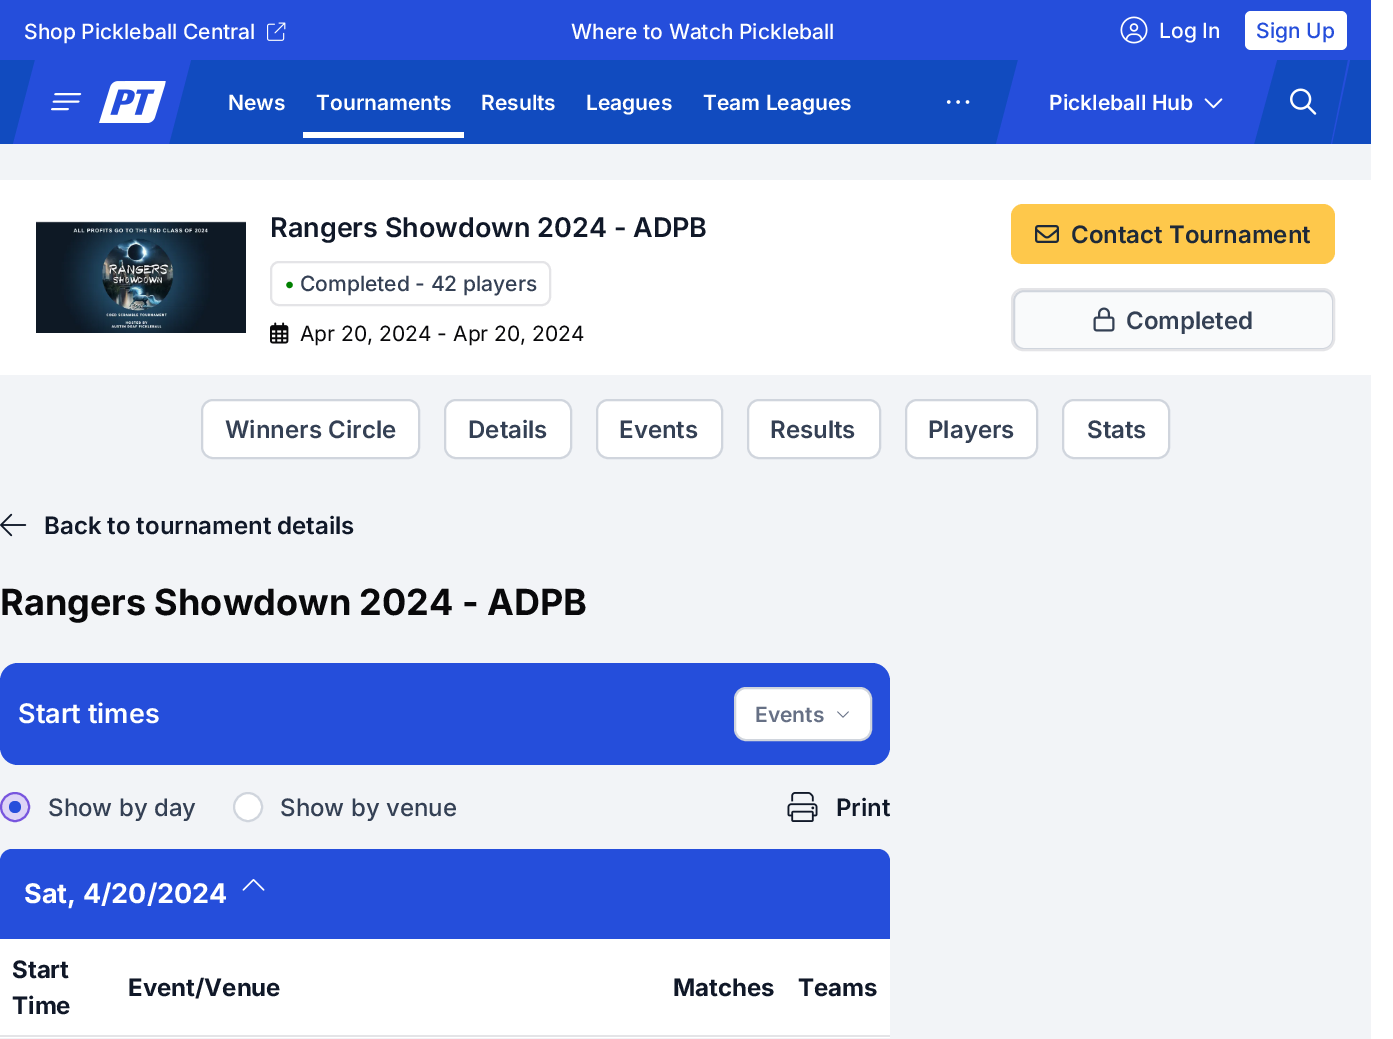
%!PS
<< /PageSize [1393 1039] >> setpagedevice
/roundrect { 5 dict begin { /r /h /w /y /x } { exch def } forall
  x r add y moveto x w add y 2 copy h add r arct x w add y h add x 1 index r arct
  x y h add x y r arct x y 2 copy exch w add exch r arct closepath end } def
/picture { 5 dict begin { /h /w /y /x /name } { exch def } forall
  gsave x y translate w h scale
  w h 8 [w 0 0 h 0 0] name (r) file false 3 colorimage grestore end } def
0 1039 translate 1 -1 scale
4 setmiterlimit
1 setgray
0 0 1393 1039 rectfill
0.145 0.306 0.859 setrgbcolor
0 0 1371 60 rectfill
/Inter-Medium [21 0 0 -21 0 0] selectfont
1 setgray
24 39 moveto (Shop Pickleball Central) show
(img1.rgb) 267 22 19 19 picture
571 39 moveto (Where to Watch Pickleball) show
(img2.rgb) 1120 16 28 28 picture
1159 38 moveto (Log In) show
1245 11 102 39 6 roundrect fill
0.145 0.306 0.859 setrgbcolor
1256 38 moveto (Sign Up) show
0.067 0.294 0.749 setrgbcolor
0 60 1371 84 rectfill
0.145 0.306 0.859 setrgbcolor
newpath 35 60 moveto 191 60 lineto 169 144 lineto 13 144 lineto closepath fill
(img3.rgb) 51 93 31 18 picture
(img4.rgb) 99 81 67 42 picture
/Inter-SemiBold [21 0 0 -21 0 0] selectfont
1 setgray
228 110 moveto (News) show
316 110 moveto (Tournaments) show
303 132 161 6 rectfill
481 110 moveto (Results) show
586 110 moveto (Leagues) show
703 110 moveto (Team Leagues) show
(img5.rgb) 946 100 24 4 picture
0.145 0.306 0.859 setrgbcolor
newpath 1018 60 moveto 1277 60 lineto 1254 144 lineto 996 144 lineto closepath fill
1 setgray
1049 110 moveto (Pickleball Hub) show
(img6.rgb) 1204 98 19 11 picture
0.145 0.306 0.859 setrgbcolor
newpath 1348 60 moveto 1350 60 lineto 1332 144 lineto 1331 144 lineto closepath fill
(img7.rgb) 1290 88 27 27 picture
0.949 0.957 0.969 setrgbcolor
0 144 1371 895 rectfill
1 setgray
0 180 1371 195 rectfill
(img8.rgb) 36 221 210 112 picture
/Inter-SemiBold [27 0 0 -27 0 0] selectfont
0.063 0.094 0.157 setrgbcolor
270 237 moveto (Rangers Showdown 2024 - ADPB) show
0.894 0.894 0.906 setrgbcolor
2 setlinewidth
271 262 279 43 8 roundrect stroke
/Inter-Medium [21 0 0 -21 0 0] selectfont
0 0.502 0 setrgbcolor
284 291 moveto (•) show
0.204 0.251 0.329 setrgbcolor
300 291 moveto (Completed - 42 players) show
(img9.rgb) 270 322 19 22 picture
/Inter-Regular [21 0 0 -21 0 0] selectfont
0.035 0.035 0.043 setrgbcolor
300 341 moveto (Apr 20, 2024 - Apr 20, 2024) show
0.996 0.784 0.294 setrgbcolor
1011 204 324 60 12 roundrect fill
(img10.rgb) 1035 225 24 18 picture
/Inter-SemiBold [24 0 0 -24 0 0] selectfont
0.114 0.161 0.224 setrgbcolor
1071 243 moveto (Contact Tournament) show
0.976 0.98 0.984 setrgbcolor
1011 288 324 63 12 roundrect fill
0.816 0.835 0.867 setrgbcolor
1014 291 319 58 10 roundrect stroke
0.894 0.894 0.906 setrgbcolor
1012 289 322 61 11 roundrect stroke
(img11.rgb) 1093 307 22 25 picture
0.204 0.251 0.329 setrgbcolor
1126 329 moveto (Completed) show
1 setgray
202 400 217 58 11 roundrect gsave fill grestore
0.816 0.835 0.867 setrgbcolor
stroke
0.204 0.251 0.329 setrgbcolor
225 438 moveto (Winners Circle) show
1 setgray
445 400 126 58 11 roundrect gsave fill grestore
0.816 0.835 0.867 setrgbcolor
stroke
0.204 0.251 0.329 setrgbcolor
468 438 moveto (Details) show
1 setgray
597 400 125 58 11 roundrect gsave fill grestore
0.816 0.835 0.867 setrgbcolor
stroke
0.204 0.251 0.329 setrgbcolor
619 438 moveto (Events) show
1 setgray
748 400 132 58 11 roundrect gsave fill grestore
0.816 0.835 0.867 setrgbcolor
stroke
0.204 0.251 0.329 setrgbcolor
770 438 moveto (Results) show
1 setgray
906 400 131 58 11 roundrect gsave fill grestore
0.816 0.835 0.867 setrgbcolor
stroke
0.204 0.251 0.329 setrgbcolor
928 438 moveto (Players) show
1 setgray
1063 400 106 58 11 roundrect gsave fill grestore
0.816 0.835 0.867 setrgbcolor
stroke
0.204 0.251 0.329 setrgbcolor
1087 438 moveto (Stats) show
(img12.rgb) 0 513 27 24 picture
0.063 0.094 0.157 setrgbcolor
44 534 moveto (Back to tournament details) show
/Inter-Bold [36 0 0 -36 0 0] selectfont
0.035 0.035 0.043 setrgbcolor
0 615 moveto (Rangers Showdown 2024 - ADPB) show
0.145 0.306 0.859 setrgbcolor
0 663 890 102 18 roundrect fill
/Inter-SemiBold [27 0 0 -27 0 0] selectfont
1 setgray
18 723 moveto (Start times) show
735 688 136 52 11 roundrect gsave fill grestore
0.816 0.835 0.867 setrgbcolor
stroke
/Inter-SemiBold [21 0 0 -21 0 0] selectfont
0.4 0.439 0.522 setrgbcolor
755 722 moveto (Events) show
(img13.rgb) 837 711 12 7 picture
0.867 0.831 0.965 setrgbcolor
newpath 15 807 14 0 360 arc closepath gsave fill grestore
0.471 0.333 0.871 setrgbcolor
stroke
0.145 0.306 0.859 setrgbcolor
newpath 15 801 moveto 7 801 7 813 15 813 curveto 23 813 23 801 15 801 curveto closepath fill
/Inter-Medium [24 0 0 -24 0 0] selectfont
0.204 0.251 0.329 setrgbcolor
48 816 moveto (Show by day) show
1 setgray
newpath 248 807 14 0 360 arc closepath gsave fill grestore
0.816 0.835 0.867 setrgbcolor
stroke
0.204 0.251 0.329 setrgbcolor
280 816 moveto (Show by venue) show
(img14.rgb) 787 792 31 30 picture
/Inter-SemiBold [24 0 0 -24 0 0] selectfont
0.063 0.094 0.157 setrgbcolor
836 816 moveto (Print) show
0.145 0.306 0.859 setrgbcolor
newpath 12 849 moveto 878 849 lineto 884.5 849 890 854.5 890 861 curveto 890 939 lineto 0 939 lineto 0 861 lineto 0 854.5 5.5 849 12 849 curveto closepath fill
/Inter-Bold [27 0 0 -27 0 0] selectfont
1 setgray
24 903 moveto (Sat, 4/20/2024) show
(img15.rgb) 242 879 23 12 picture
0 939 890 99 rectfill
/Inter-Bold [24 0 0 -24 0 0] selectfont
0.063 0.094 0.157 setrgbcolor
12 978 moveto (Start) show
12 1014 moveto (Time) show
128 996 moveto (Event/Venue) show
673 996 moveto (Matches) show
798 996 moveto (Teams) show
0.894 0.894 0.906 setrgbcolor
0 1035 890 2 rectfill
showpage
